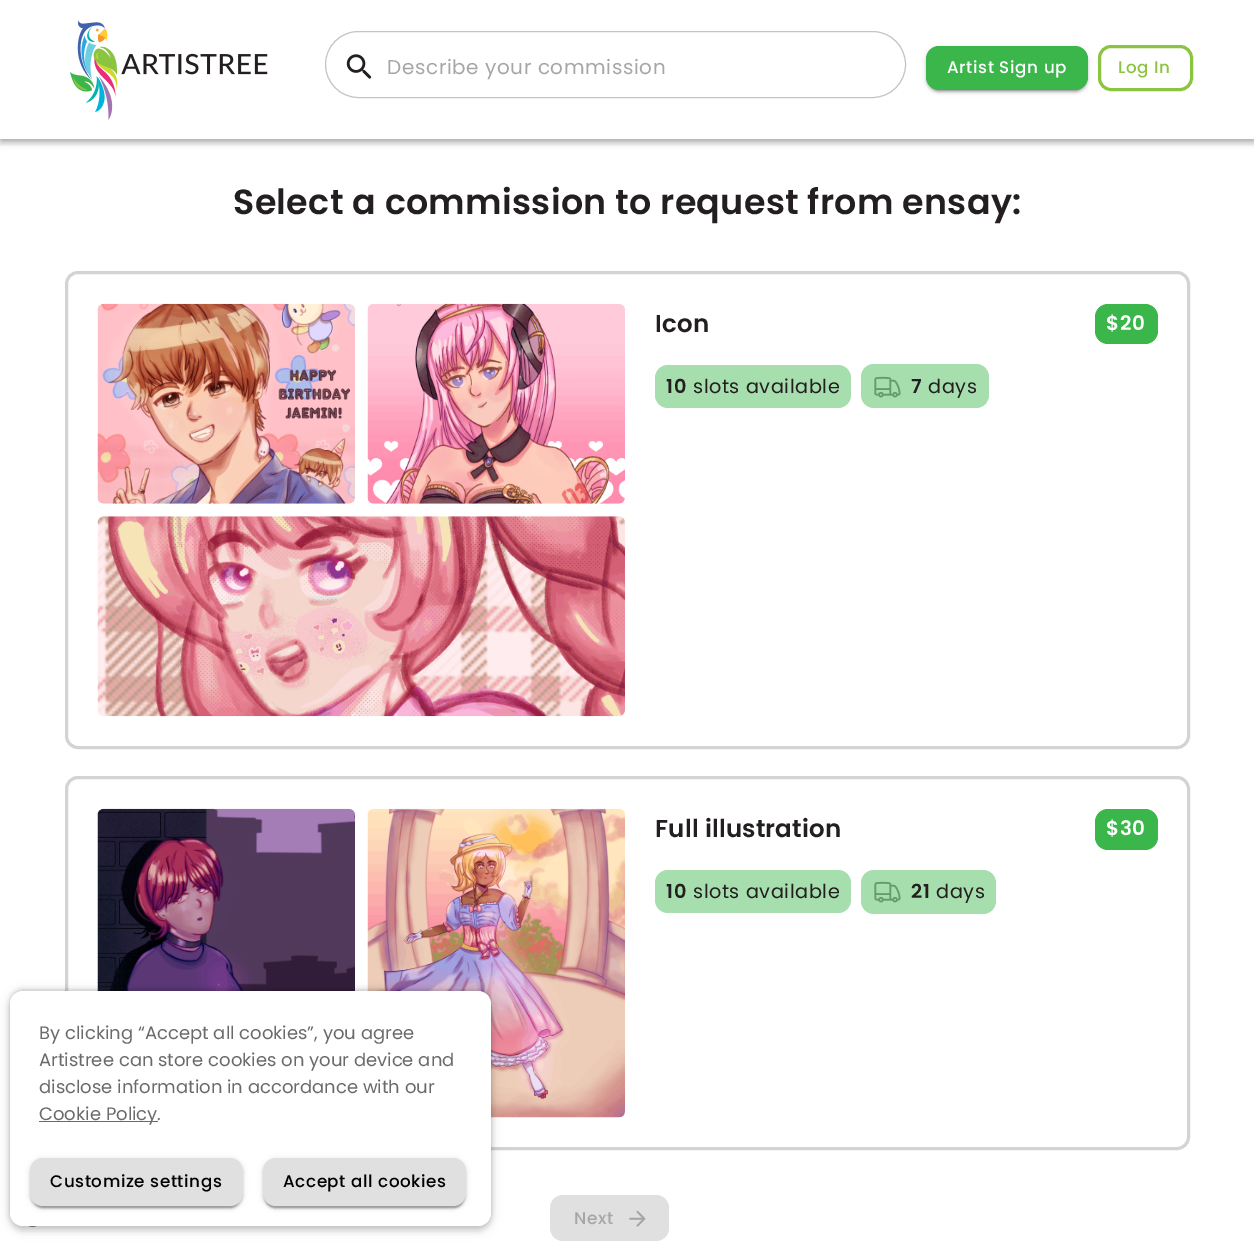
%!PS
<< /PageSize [1254 1256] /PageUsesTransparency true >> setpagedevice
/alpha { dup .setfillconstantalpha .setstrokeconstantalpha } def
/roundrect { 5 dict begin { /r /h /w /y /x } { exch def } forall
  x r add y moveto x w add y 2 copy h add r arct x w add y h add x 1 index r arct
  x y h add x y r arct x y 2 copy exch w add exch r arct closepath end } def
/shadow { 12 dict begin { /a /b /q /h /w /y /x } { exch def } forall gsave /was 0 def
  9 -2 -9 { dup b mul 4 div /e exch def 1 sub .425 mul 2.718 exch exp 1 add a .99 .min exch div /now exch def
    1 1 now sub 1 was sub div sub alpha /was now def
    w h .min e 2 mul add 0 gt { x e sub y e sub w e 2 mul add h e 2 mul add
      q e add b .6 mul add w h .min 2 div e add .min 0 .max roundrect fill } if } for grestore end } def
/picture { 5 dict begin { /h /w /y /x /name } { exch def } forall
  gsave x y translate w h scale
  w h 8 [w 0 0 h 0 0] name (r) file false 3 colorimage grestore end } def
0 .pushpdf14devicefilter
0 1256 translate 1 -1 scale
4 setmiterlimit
1 setgray
0 0 1254 1256 rectfill
gsave
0 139 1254 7 rectclip
0 setgray
0 1 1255 139 0 6 0.12 shadow
grestore
gsave
newpath 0 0 moveto 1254 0 lineto 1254 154 lineto 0 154 lineto closepath 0 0 moveto 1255 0 lineto 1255 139 lineto 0 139 lineto closepath eoclip newpath
0 setgray
0 5 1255 139 0 3 0.14 shadow
grestore
gsave
newpath 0 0 moveto 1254 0 lineto 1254 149 lineto 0 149 lineto closepath 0 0 moveto 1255 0 lineto 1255 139 lineto 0 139 lineto closepath eoclip newpath
0 setgray
1 4 1253 136 0 2.5 0.2 shadow
grestore
0.9 alpha
0 138 1254 1 rectfill
1 alpha
(img1.rgb) 70 20 198 100 picture
(img2.rgb) 346 54 26 25 picture
0.769 setgray
325.5 31.5 580 66 33 roundrect stroke
/Poppins-Regular [20 0 0 -20 0 0] selectfont
0.651 setgray
387 74 moveto 0.6 0 (Describe your commission) ashow
0 setgray
926 48 162 43 13 3 0.12 shadow
926 49 162 44 13 1 0.14 shadow
929 53 156 38 10 0.5 0.2 shadow
0.227 0.714 0.29 setrgbcolor
926 46 162 44 13 roundrect fill
/Poppins-Medium [16.75 0 0 -16.75 0 0] selectfont
1 setgray
947 73 moveto 0.6 0 (Artist Sign up) ashow
0.545 0.769 0.251 setrgbcolor
3 setlinewidth
1099.5 46.5 92 43 11.5 roundrect stroke
1118 73 moveto 0.6 0 (Log In) ashow
/Poppins-SemiBold [34.9 0 0 -34.9 0 0] selectfont
0.137 0.122 0.125 setrgbcolor
233 214 moveto 0.3 0 (Select a commission to request from ensay:) ashow
0.827 setgray
66.5 272.5 1122 475 11.5 roundrect stroke
(img3.rgb) 97 303 258 201 picture
(img4.rgb) 367 303 258 201 picture
(img5.rgb) 97 516 528 201 picture
/Poppins-SemiBold [24.5 0 0 -24.5 0 0] selectfont
0.137 0.122 0.125 setrgbcolor
655 332 moveto 0.2 0 (Icon) ashow
0.227 0.714 0.29 setrgbcolor
1095 304 63 40 13 roundrect fill
/Poppins-SemiBold [20 0 0 -20 0 0] selectfont
1 setgray
1106 330 moveto 0.6 0 ($20) ashow
0.651 0.871 0.682 setrgbcolor
655 365 196 43 13 roundrect fill
/Poppins-SemiBold [19.25 0 0 -19.25 0 0] selectfont
0.137 0.122 0.125 setrgbcolor
666 393 moveto 0.6 0 (10) ashow
/Poppins-Regular [19.25 0 0 -19.25 0 0] selectfont
693 393 moveto 0.6 0 (slots available) ashow
0.651 0.871 0.682 setrgbcolor
861 364 128 44 13 roundrect fill
(img6.rgb) 874 376 27 22 picture
/Poppins-SemiBold [19.25 0 0 -19.25 0 0] selectfont
0.137 0.122 0.125 setrgbcolor
911 393 moveto 0.6 0 (7) ashow
/Poppins-Regular [19.25 0 0 -19.25 0 0] selectfont
928 393 moveto 0.6 0 (days) ashow
0.827 setgray
66.5 777.5 1122 371 11.5 roundrect stroke
(img7.rgb) 97 808 258 183 picture
(img8.rgb) 367 808 258 310 picture
/Poppins-SemiBold [24.5 0 0 -24.5 0 0] selectfont
0.137 0.122 0.125 setrgbcolor
655 837 moveto 0.2 0 (Full illustration) ashow
0.227 0.714 0.29 setrgbcolor
1095 809 63 41 13 roundrect fill
/Poppins-SemiBold [20 0 0 -20 0 0] selectfont
1 setgray
1106 835 moveto 0.6 0 ($30) ashow
0.651 0.871 0.682 setrgbcolor
655 870 196 43 13 roundrect fill
/Poppins-SemiBold [19.25 0 0 -19.25 0 0] selectfont
0.137 0.122 0.125 setrgbcolor
666 898 moveto 0.6 0 (10) ashow
/Poppins-Regular [19.25 0 0 -19.25 0 0] selectfont
693 898 moveto 0.6 0 (slots available) ashow
0.651 0.871 0.682 setrgbcolor
861 870 135 44 13 roundrect fill
(img6.rgb) 874 881 27 22 picture
/Poppins-SemiBold [19.25 0 0 -19.25 0 0] selectfont
0.137 0.122 0.125 setrgbcolor
911 898 moveto 0.6 0 (21) ashow
/Poppins-Regular [19.25 0 0 -19.25 0 0] selectfont
936 898 moveto 0.6 0 (days) ashow
0.878 setgray
550 1195 119 46 13 roundrect fill
/Poppins-Medium [17 0 0 -17 0 0] selectfont
0.651 setgray
574 1224 moveto 0.6 0 (Next) ashow
(img9.rgb) 629 1210 17 17 picture
(img10.rgb) 28 1226 9 1 picture
0 setgray
10 993 481 235 13 6 0.12 shadow
10 996 481 235 13 3 0.14 shadow
11 990 479 233 11 2.5 0.2 shadow
1 setgray
10 991 481 235 13 roundrect fill
/Poppins-Regular [18 0 0 -18 0 0] selectfont
0.416 setgray
39 1039 moveto (By clicking “Accept all cookies”, you agree) show
39 1066 moveto (Artistree can store cookies on your device and) show
39 1093 moveto (disclose information in accordance with our) show
39 1121 119 1 rectfill
39 1120 moveto (Cookie Policy.) show
0 setgray
30 1159 213 49 13 3 0.12 shadow
30 1160 213 49 13 1 0.14 shadow
33 1164 207 44 10 0.5 0.2 shadow
0.878 setgray
30 1158 213 48 13 roundrect fill
/Poppins-Medium [16.75 0 0 -16.75 0 0] selectfont
0 setgray
50 1187 moveto 0.6 0 (Customize settings) ashow
263 1159 203 49 13 3 0.12 shadow
263 1160 203 49 13 1 0.14 shadow
265 1164 199 44 10 0.5 0.2 shadow
0.878 setgray
263 1158 203 48 13 roundrect fill
0 setgray
283 1187 moveto 0.6 0 (Accept all cookies) ashow
.poppdf14devicefilter showpage
